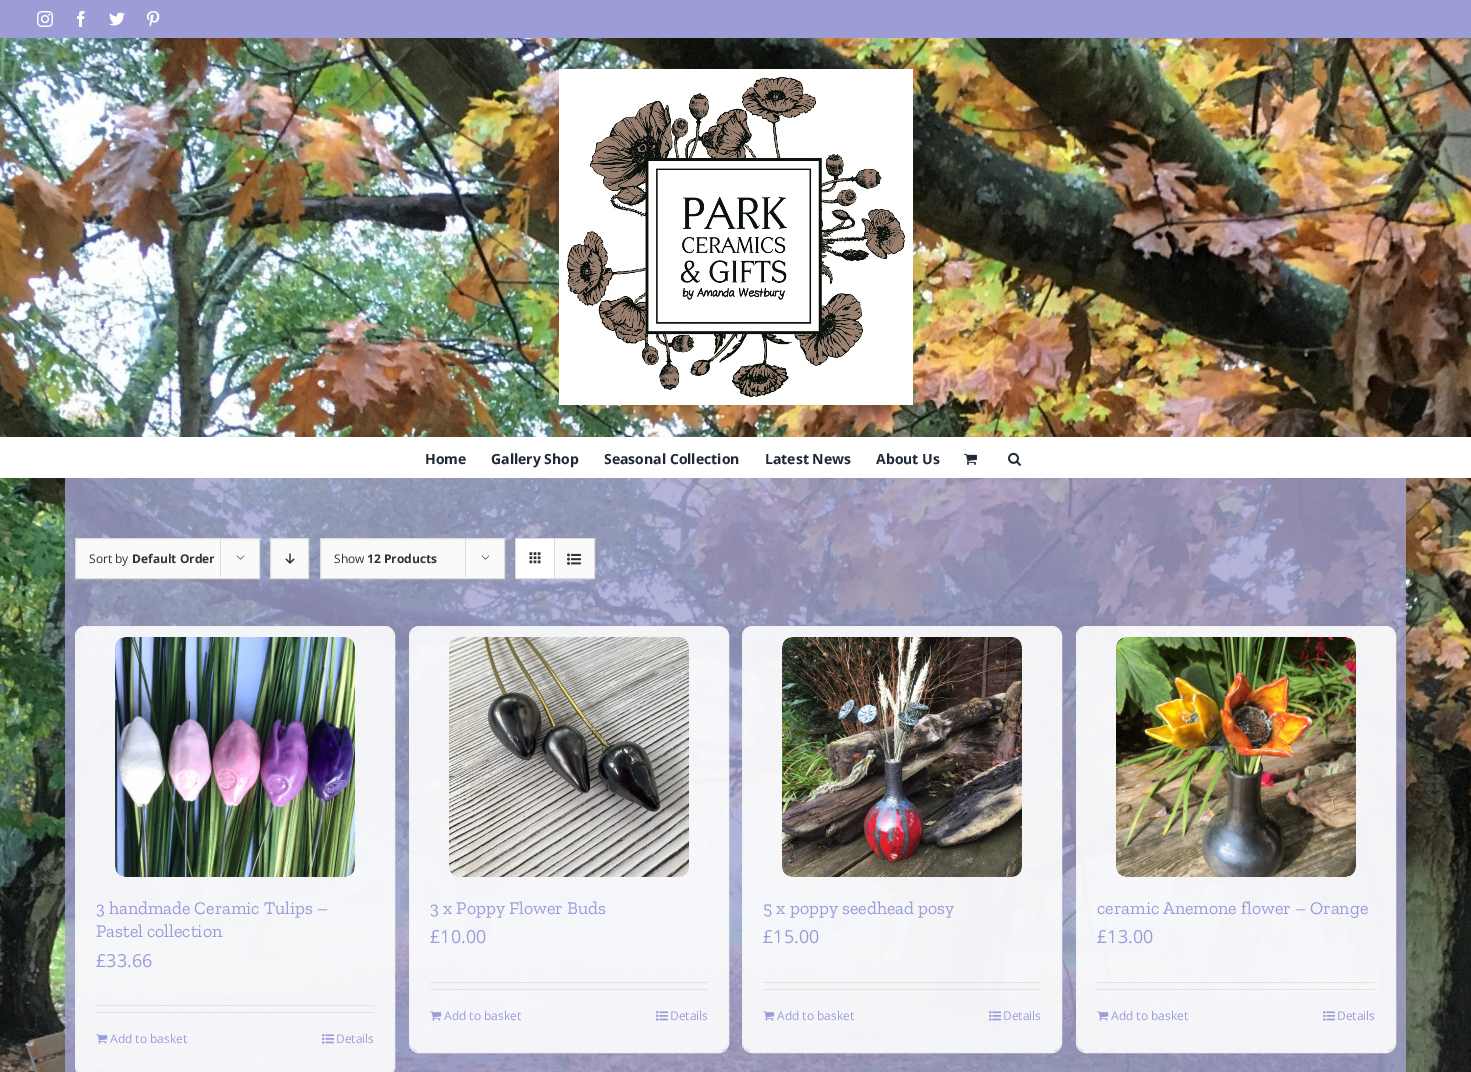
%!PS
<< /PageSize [1471 1072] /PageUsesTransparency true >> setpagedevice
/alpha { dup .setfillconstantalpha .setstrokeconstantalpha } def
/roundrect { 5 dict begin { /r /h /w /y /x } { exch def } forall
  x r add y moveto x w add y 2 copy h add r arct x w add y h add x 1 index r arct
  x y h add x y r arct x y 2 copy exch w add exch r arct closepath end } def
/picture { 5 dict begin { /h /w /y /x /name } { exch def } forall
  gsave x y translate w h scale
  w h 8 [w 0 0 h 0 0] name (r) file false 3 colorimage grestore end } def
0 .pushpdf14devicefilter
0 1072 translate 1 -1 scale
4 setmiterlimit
1 setgray
0 0 1471 1072 rectfill
(img1.rgb) 0 38 1471 1034 picture
0.612 0.612 0.839 setrgbcolor
0 0 1471 38 rectfill
(img2.rgb) 37 11 16 16 picture
(img3.rgb) 77 11 8 16 picture
(img4.rgb) 109 12 16 14 picture
(img5.rgb) 146 11 14 16 picture
(img6.rgb) 559 69 354 336 picture
1 setgray
0 437 1471 41 rectfill
/OpenSans-Bold [14 0 0 -14 0 0] selectfont
0.129 0.161 0.204 setrgbcolor
425 464 moveto (Home) show
491 464 moveto (Gallery Shop) show
604 464 moveto (Seasonal Collection) show
765 464 moveto (Latest News) show
876 464 moveto (About Us) show
(img7.rgb) 964 453 13 12 picture
(img8.rgb) 1008 452 13 14 picture
0.8 alpha
0.635 0.635 0.816 setrgbcolor
65 478 1341 594 rectfill
1 alpha
0.984 0.98 0.976 setrgbcolor
newpath 75.5 538.5 moveto 259.5 538.5 lineto 259.5 578.5 lineto 75.5 578.5 lineto closepath gsave fill grestore
0.859 setgray
stroke
/OpenSans-Regular [12 0 0 -12 0 0] selectfont
0.2 setgray
89 563 moveto (Sort by) show
/OpenSans-Bold [12 0 0 -12 0 0] selectfont
132 563 moveto (Default Order) show
0.859 setgray
220 538 1 39 rectfill
(img9.rgb) 236 555 9 5 picture
0.984 0.98 0.976 setrgbcolor
newpath 270.5 538.5 moveto 308.5 538.5 lineto 308.5 578.5 lineto 270.5 578.5 lineto closepath gsave fill grestore
0.859 setgray
stroke
(img10.rgb) 285 553 10 11 picture
0.984 0.98 0.976 setrgbcolor
newpath 320.5 538.5 moveto 504.5 538.5 lineto 504.5 578.5 lineto 320.5 578.5 lineto closepath gsave fill grestore
0.859 setgray
stroke
/OpenSans-Regular [12 0 0 -12 0 0] selectfont
0.2 setgray
334 563 moveto (Show) show
/OpenSans-Bold [12 0 0 -12 0 0] selectfont
367 563 moveto (12 Products) show
0.859 setgray
465 538 1 39 rectfill
(img9.rgb) 481 555 9 5 picture
515.5 538.5 79 40 rectstroke
1 setgray
516 539 38 39 rectfill
0.859 setgray
554 539 1 39 rectfill
(img11.rgb) 529 552 12 12 picture
0.984 0.98 0.976 setrgbcolor
555 539 39 39 rectfill
(img12.rgb) 567 553 14 12 picture
0.9 alpha
1 setgray
newpath 85 627 moveto 385 627 lineto 390 627 394 631 394 636 curveto 394 1067 lineto 394 1071 390 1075 385 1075 curveto 85 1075 lineto 80 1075 76 1071 76 1067 curveto 76 636 lineto 76 631 80 627 85 627 curveto closepath fill
1 alpha
0.949 0.953 0.961 setrgbcolor
75.5 626.5 319 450 9.5 roundrect stroke
0.886 setgray
115 637 240 240 10 roundrect fill
(img13.rgb) 115 637 240 240 picture
/ZillaSlab-Regular [18 0 0 -18 0 0] selectfont
0.6 0.616 0.851 setrgbcolor
96 914 moveto (3 handmade Ceramic Tulips –) show
96 937 moveto (Pastel collection) show
/OpenSans-Regular [18 0 0 -18 0 0] selectfont
96 967 moveto (£33.66) show
0.886 setgray
96 1005 278 1 rectfill
96 1012 278 1 rectfill
(img14.rgb) 96 1034 12 10 picture
/OpenSans-Regular [12 0 0 -12 0 0] selectfont
0.6 0.616 0.851 setrgbcolor
110 1043 moveto (Add to basket) show
(img15.rgb) 322 1034 12 10 picture
336 1043 moveto (Details) show
0.9 alpha
1 setgray
newpath 419 627 moveto 719 627 lineto 724 627 728 631 728 636 curveto 728 1043 lineto 728 1047 724 1051 719 1051 curveto 419 1051 lineto 414 1051 410 1047 410 1043 curveto 410 636 lineto 410 631 414 627 419 627 curveto closepath fill
1 alpha
0.949 0.953 0.961 setrgbcolor
409.5 626.5 319 426 9.5 roundrect stroke
414 1051 310 1 rectfill
0.886 setgray
449 637 240 240 10 roundrect fill
(img16.rgb) 449 637 240 240 picture
/ZillaSlab-Regular [18 0 0 -18 0 0] selectfont
0.6 0.616 0.851 setrgbcolor
430 914 moveto (3 x Poppy Flower Buds) show
/OpenSans-Regular [18 0 0 -18 0 0] selectfont
430 943 moveto (£10.00) show
0.886 setgray
430 982 278 1 rectfill
430 989 278 1 rectfill
(img17.rgb) 430 1011 12 10 picture
/OpenSans-Regular [12 0 0 -12 0 0] selectfont
0.6 0.616 0.851 setrgbcolor
444 1020 moveto (Add to basket) show
(img18.rgb) 656 1011 12 10 picture
670 1020 moveto (Details) show
0.9 alpha
1 setgray
newpath 752 627 moveto 1052 627 lineto 1057 627 1061 631 1061 636 curveto 1061 1043 lineto 1061 1047 1057 1051 1052 1051 curveto 752 1051 lineto 747 1051 743 1047 743 1043 curveto 743 636 lineto 743 631 747 627 752 627 curveto closepath fill
1 alpha
0.949 0.953 0.961 setrgbcolor
742.5 626.5 319 426 9.5 roundrect stroke
747 1051 310 1 rectfill
(img19.rgb) 782 637 240 240 picture
/ZillaSlab-Regular [18 0 0 -18 0 0] selectfont
0.6 0.616 0.851 setrgbcolor
763 914 moveto (5 x poppy seedhead posy) show
/OpenSans-Regular [18 0 0 -18 0 0] selectfont
763 943 moveto (£15.00) show
0.886 setgray
763 982 278 1 rectfill
763 989 278 1 rectfill
(img20.rgb) 763 1011 12 10 picture
/OpenSans-Regular [12 0 0 -12 0 0] selectfont
0.6 0.616 0.851 setrgbcolor
777 1020 moveto (Add to basket) show
(img21.rgb) 989 1011 12 10 picture
1003 1020 moveto (Details) show
0.9 alpha
1 setgray
newpath 1086 627 moveto 1386 627 lineto 1391 627 1395 631 1395 636 curveto 1395 1043 lineto 1395 1047 1391 1051 1386 1051 curveto 1086 1051 lineto 1081 1051 1077 1047 1077 1043 curveto 1077 636 lineto 1077 631 1081 627 1086 627 curveto closepath fill
1 alpha
0.949 0.953 0.961 setrgbcolor
1076.5 626.5 319 426 9.5 roundrect stroke
1081 1051 310 1 rectfill
0.886 setgray
1116 637 240 240 10 roundrect fill
(img22.rgb) 1116 637 240 240 picture
/ZillaSlab-Regular [18 0 0 -18 0 0] selectfont
0.6 0.616 0.851 setrgbcolor
1097 914 moveto (ceramic Anemone flower – Orange) show
/OpenSans-Regular [18 0 0 -18 0 0] selectfont
1097 943 moveto (£13.00) show
0.886 setgray
1097 982 278 1 rectfill
1097 989 278 1 rectfill
(img23.rgb) 1097 1011 12 10 picture
/OpenSans-Regular [12 0 0 -12 0 0] selectfont
0.6 0.616 0.851 setrgbcolor
1111 1020 moveto (Add to basket) show
(img24.rgb) 1323 1011 12 10 picture
1337 1020 moveto (Details) show
.poppdf14devicefilter showpage
